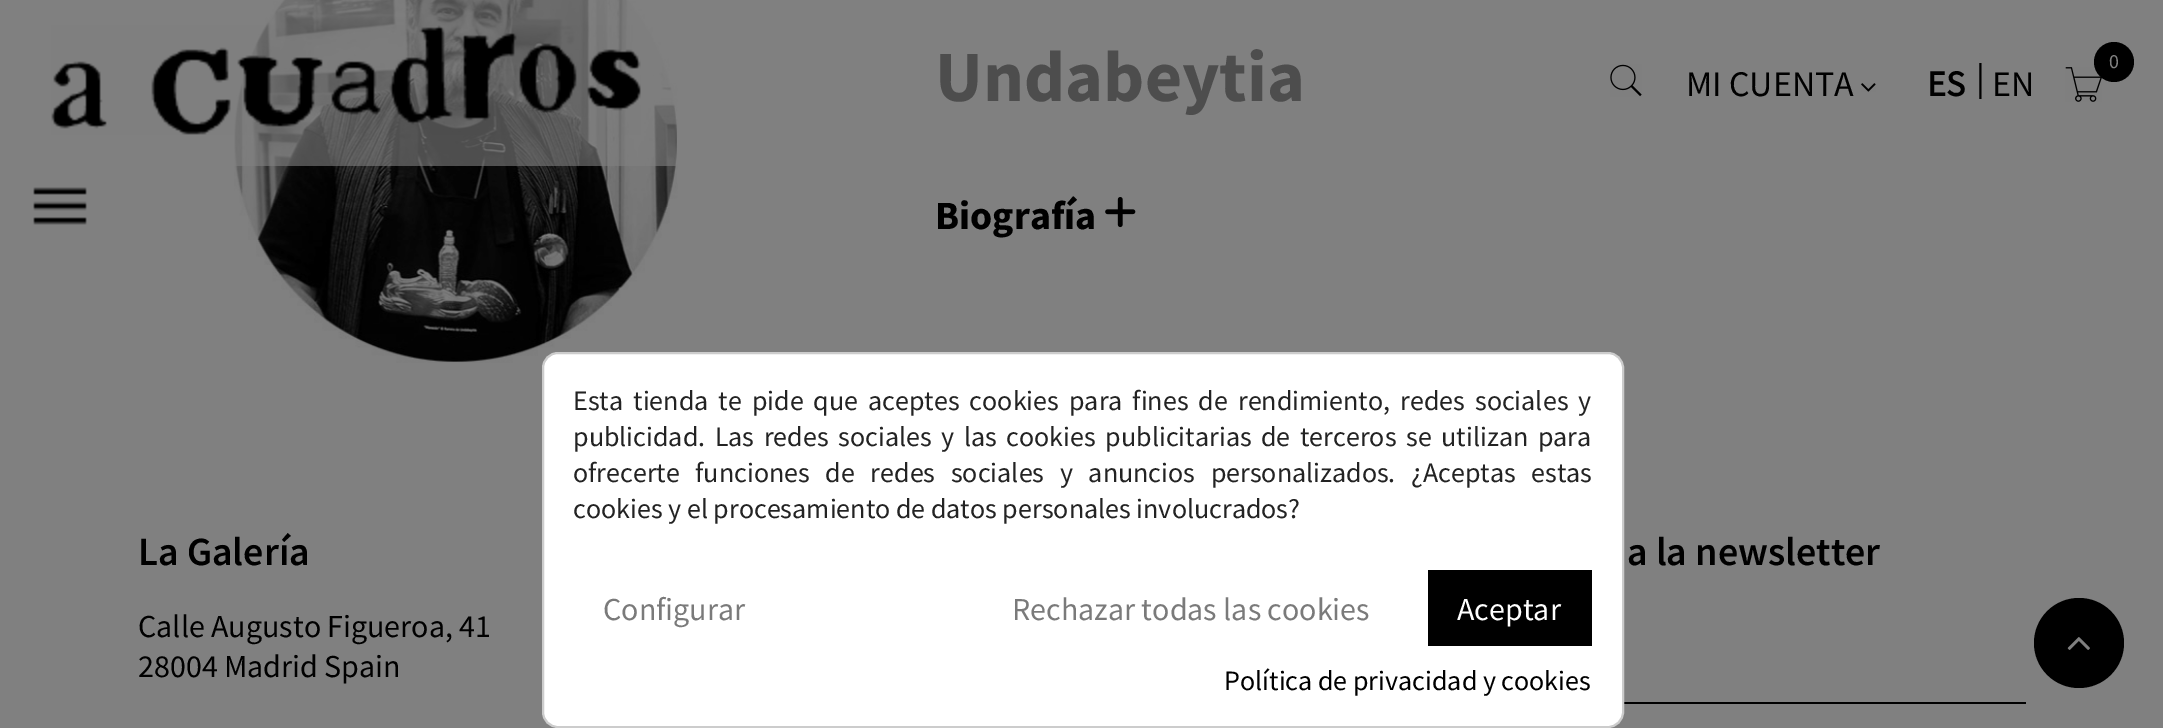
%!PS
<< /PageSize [2163 728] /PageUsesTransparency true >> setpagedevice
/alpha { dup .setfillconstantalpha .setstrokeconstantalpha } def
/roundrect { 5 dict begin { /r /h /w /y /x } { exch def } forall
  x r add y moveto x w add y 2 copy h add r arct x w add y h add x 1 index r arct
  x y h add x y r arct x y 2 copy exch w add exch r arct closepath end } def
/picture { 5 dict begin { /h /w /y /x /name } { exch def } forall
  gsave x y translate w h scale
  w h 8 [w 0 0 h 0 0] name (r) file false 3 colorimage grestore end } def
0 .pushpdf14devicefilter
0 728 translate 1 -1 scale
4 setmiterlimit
0.502 setgray
0 0 2163 728 rectfill
(img1.rgb) 234 0 444 363 picture
/SourceSansPro-Bold [72 0 0 -72 0 0] selectfont
0 setgray
935 101 moveto (Undabeytia) show
/SourceSansPro-Bold [40 0 0 -40 0 0] selectfont
935 229 moveto (Biografía) show
(img2.rgb) 1105 197 31 31 picture
0.6 alpha
0.502 setgray
234 0 1067 166 rectfill
1 alpha
(img3.rgb) 51 25 590 110 picture
(img4.rgb) 33 187 54 38 picture
(img5.rgb) 1610 64 32 33 picture
/SourceSansPro-Regular [36 0 0 -36 0 0] selectfont
0 setgray
1686 96 moveto (MI CUENTA) show
(img6.rgb) 1861 83 15 9 picture
/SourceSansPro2-Bold [36 0 0 -36 0 0] selectfont
1927 96 moveto (ES) show
/SourceSansPro-Regular [36 0 0 -36 0 0] selectfont
1976 90 moveto (|) show
1992 96 moveto (EN) show
(img7.rgb) 2065 67 37 35 picture
newpath 2114 62 20 0 360 arc closepath fill
/SourceSansPro-Regular [20 0 0 -20 0 0] selectfont
0.502 setgray
2109 68 moveto (0) show
/SourceSansPro-SemiBold [40 0 0 -40 0 0] selectfont
0 setgray
138 565 moveto (La Galería) show
/SourceSansPro-Regular [32 0 0 -32 0 0] selectfont
138 637 moveto (Calle Augusto Figueroa, 41) show
138 677 moveto (28004 Madrid Spain) show
/SourceSansPro-SemiBold [40 0 0 -40 0 0] selectfont
1627 565 moveto (a la newsletter) show
1624 702 402 2 rectfill
newpath 2079 643 45 0 360 arc closepath fill
(img8.rgb) 2067 637 23 13 picture
1 setgray
543 353 1080 374 15 roundrect gsave fill grestore
0.8 setgray
2 setlinewidth
stroke
/SourceSansPro-Regular [28 0 0 -28 0 0] selectfont
0.137 setgray
573 410 moveto 4.4 0 32 (Esta tienda te pide que aceptes cookies para fines de rendimiento, redes sociales y) widthshow
573 446 moveto 4 0 32 (publicidad. Las redes sociales y las cookies publicitarias de terceros se utilizan para) widthshow
573 482 moveto 10 0 32 (ofrecerte funciones de redes sociales y anuncios personalizados. ¿Aceptas estas) widthshow
573 518 moveto (cookies y el procesamiento de datos personales involucrados?) show
/SourceSansPro-Regular [32 0 0 -32 0 0] selectfont
0.478 setgray
603 620 moveto (Configurar) show
1012 620 moveto (Rechazar todas las cookies) show
0 setgray
1428 570 164 76 rectfill
1 setgray
1457 620 moveto (Aceptar) show
/SourceSansPro-Regular [28 0 0 -28 0 0] selectfont
0 setgray
1224 690 moveto (Política de privacidad y cookies) show
.poppdf14devicefilter showpage
